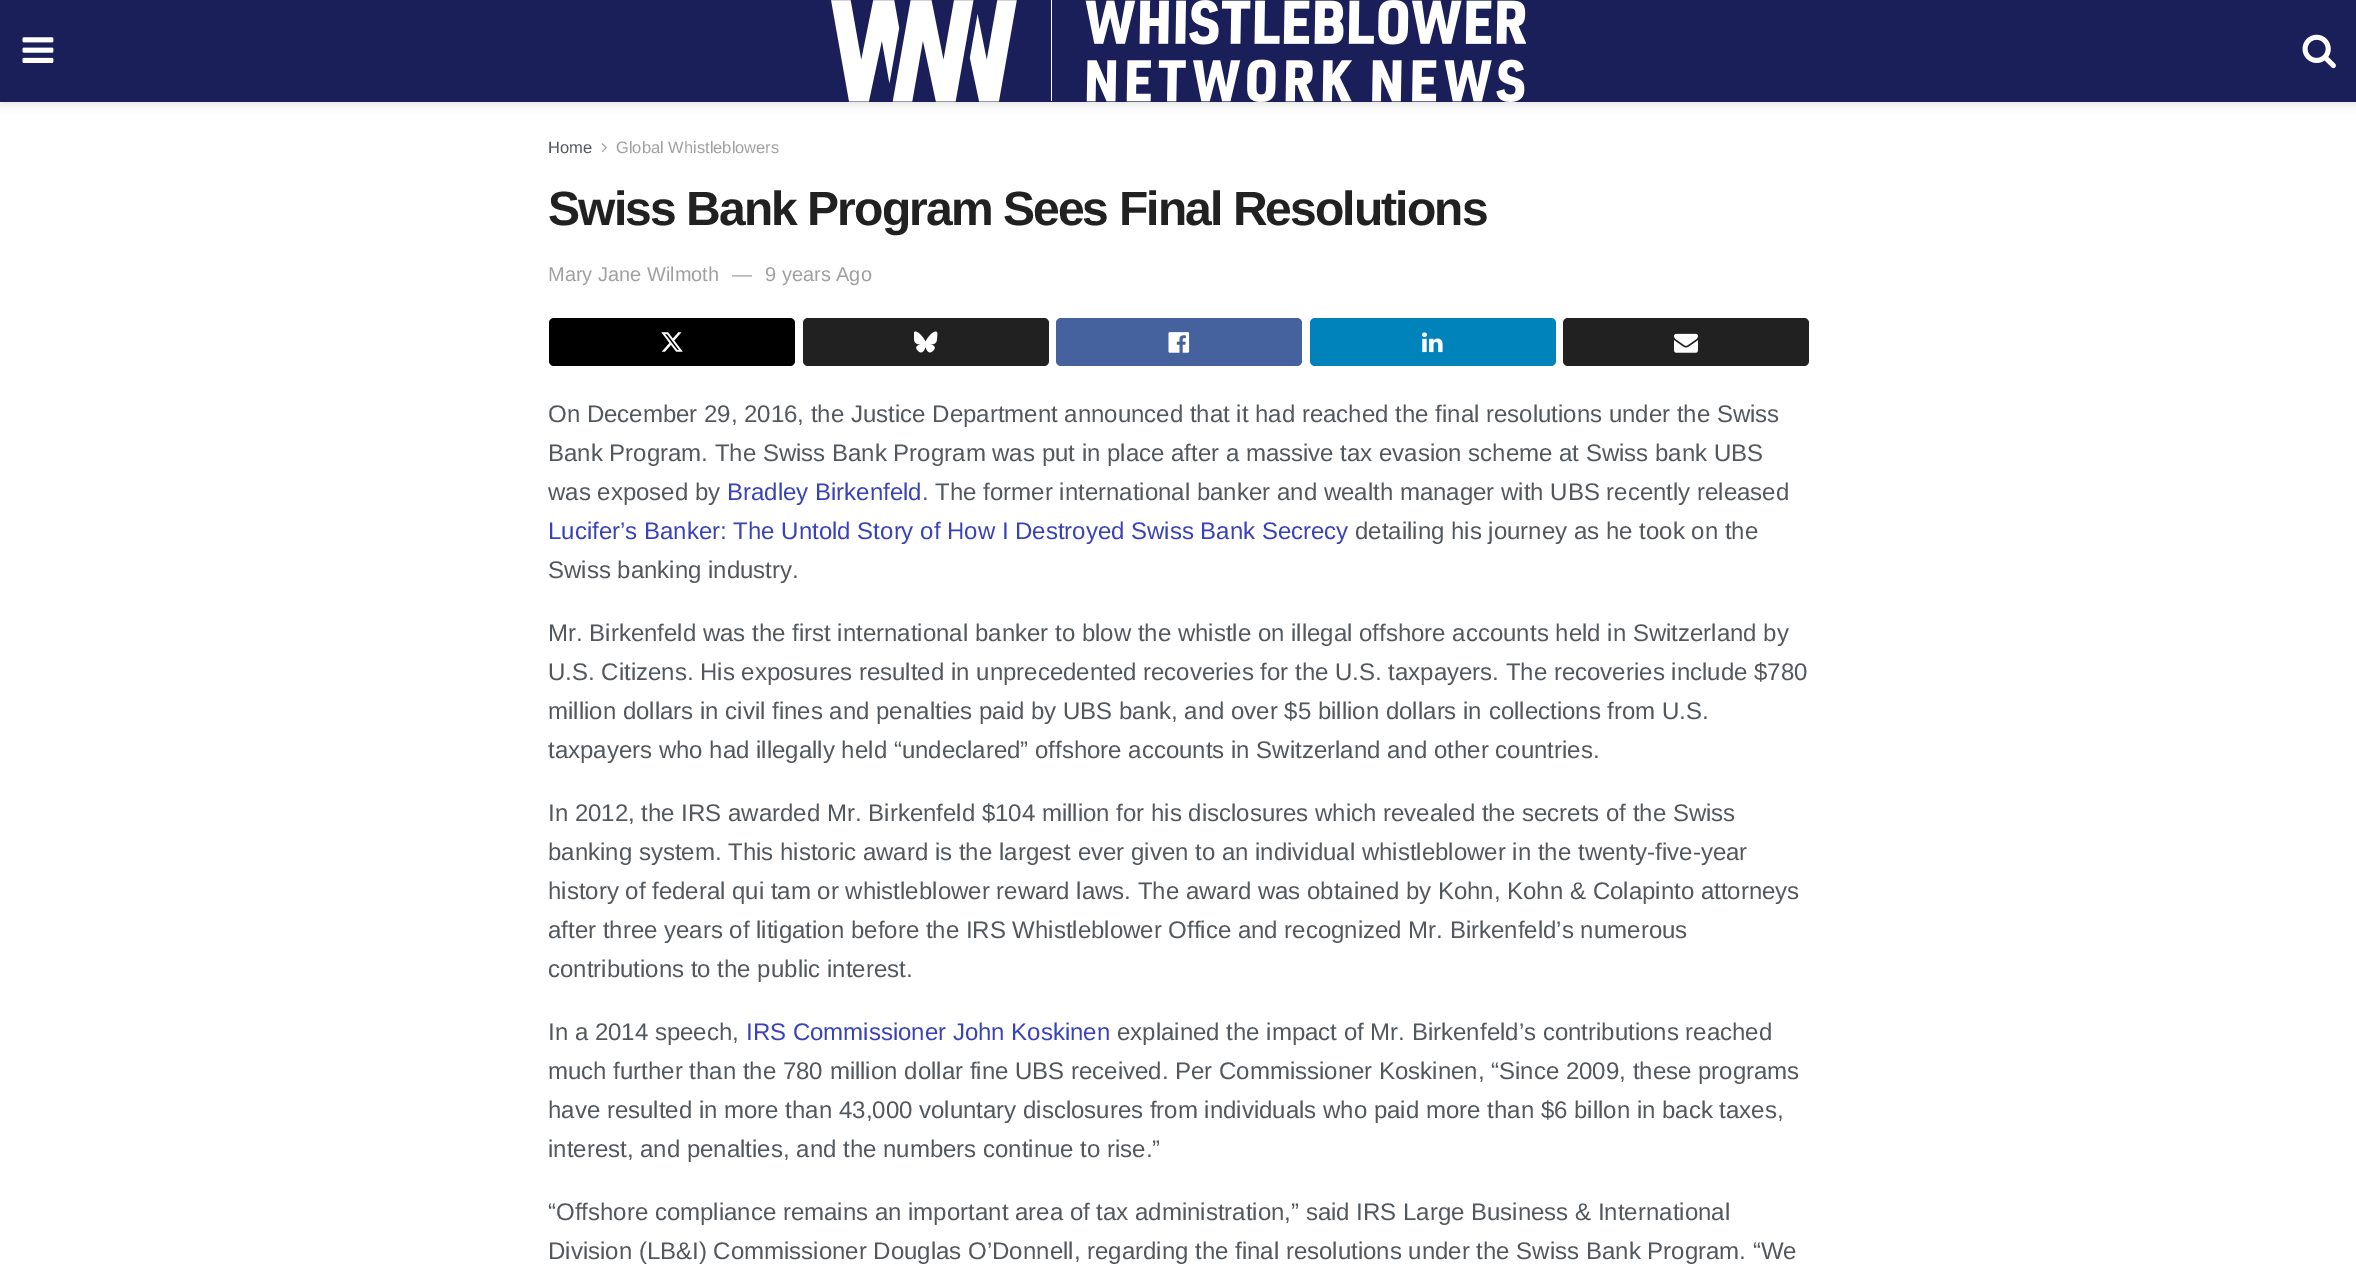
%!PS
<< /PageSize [2356 1265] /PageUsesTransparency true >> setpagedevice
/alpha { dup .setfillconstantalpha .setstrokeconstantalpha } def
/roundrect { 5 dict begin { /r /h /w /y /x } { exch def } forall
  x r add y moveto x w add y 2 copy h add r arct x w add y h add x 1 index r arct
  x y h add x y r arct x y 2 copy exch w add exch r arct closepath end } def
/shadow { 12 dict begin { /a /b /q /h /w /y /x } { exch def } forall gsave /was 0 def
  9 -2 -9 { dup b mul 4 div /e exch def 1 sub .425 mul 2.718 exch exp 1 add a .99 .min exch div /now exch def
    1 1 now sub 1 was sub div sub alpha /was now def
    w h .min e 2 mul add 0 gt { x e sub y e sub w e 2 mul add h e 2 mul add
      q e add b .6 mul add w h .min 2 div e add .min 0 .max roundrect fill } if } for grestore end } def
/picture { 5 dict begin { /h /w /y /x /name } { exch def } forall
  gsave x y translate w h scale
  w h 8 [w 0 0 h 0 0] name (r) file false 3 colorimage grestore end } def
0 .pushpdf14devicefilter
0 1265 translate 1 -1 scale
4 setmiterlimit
1 setgray
0 0 2356 1265 rectfill
0 setgray
0 3 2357 102 0 4.5 0.1 shadow
0.102 0.122 0.349 setrgbcolor
0 0 2356 102 rectfill
(img1.rgb) 22 37 32 26 picture
(img2.rgb) 831 0 695 102 picture
(img3.rgb) 2302 34 34 35 picture
/LiberationSans-Regular [16.5 0 0 -16.5 0 0] selectfont
0.325 0.345 0.361 setrgbcolor
548 153 moveto (Home) show
(img4.rgb) 601 143 6 10 picture
0.627 setgray
616 153 moveto (Global Whistleblowers) show
/LiberationSans-Bold [48 0 0 -48 0 0] selectfont
0.129 setgray
548 225 moveto -1.9 0 (Swiss Bank Program Sees Final Resolutions) ashow
/LiberationSans-Regular [20 0 0 -20 0 0] selectfont
0.627 setgray
548 281 moveto (Mary Jane Wilmoth) show
732 281 moveto (—) show
765 281 moveto (9 years Ago) show
0 setgray
549 318 246 48 5 roundrect fill
(img5.rgb) 661 332 22 20 picture
0.129 setgray
803 318 246 48 5 roundrect fill
(img6.rgb) 914 331 24 22 picture
0.271 0.384 0.624 setrgbcolor
1056 318 246 48 5 roundrect fill
(img7.rgb) 1168 332 22 21 picture
0 0.514 0.733 setrgbcolor
1310 318 246 48 5 roundrect fill
(img8.rgb) 1422 332 21 21 picture
0.129 setgray
1563 318 246 48 5 roundrect fill
(img9.rgb) 1674 333 24 20 picture
/LiberationSans-Regular [24 0 0 -24 0 0] selectfont
0.325 0.345 0.361 setrgbcolor
548 422 moveto (On December 29, 2016, the Justice Department announced that it had reached the final resolutions under the Swiss) show
548 461 moveto (Bank Program. The Swiss Bank Program was put in place after a massive tax evasion scheme at Swiss bank UBS) show
548 500 moveto (was exposed by) show
0.224 0.263 0.718 setrgbcolor
727 500 moveto (Bradley Birkenfeld) show
0.325 0.345 0.361 setrgbcolor
922 500 moveto (. The former international banker and wealth manager with UBS recently released) show
0.224 0.263 0.718 setrgbcolor
548 539 moveto (Lucifer’s Banker: The Untold Story of How I Destroyed Swiss Bank Secrecy) show
0.325 0.345 0.361 setrgbcolor
1355 539 moveto (detailing his journey as he took on the) show
548 578 moveto (Swiss banking industry.) show
548 641 moveto (Mr. Birkenfeld was the first international banker to blow the whistle on illegal offshore accounts held in Switzerland by) show
548 680 moveto (U.S. Citizens. His exposures resulted in unprecedented recoveries for the U.S. taxpayers. The recoveries include $780) show
548 719 moveto (million dollars in civil fines and penalties paid by UBS bank, and over $5 billion dollars in collections from U.S.) show
548 758 moveto (taxpayers who had illegally held “undeclared” offshore accounts in Switzerland and other countries.) show
548 821 moveto (In 2012, the IRS awarded Mr. Birkenfeld $104 million for his disclosures which revealed the secrets of the Swiss) show
548 860 moveto (banking system. This historic award is the largest ever given to an individual whistleblower in the twenty-five-year) show
548 899 moveto (history of federal qui tam or whistleblower reward laws. The award was obtained by Kohn, Kohn & Colapinto attorneys) show
548 938 moveto (after three years of litigation before the IRS Whistleblower Office and recognized Mr. Birkenfeld’s numerous) show
548 977 moveto (contributions to the public interest.) show
548 1040 moveto (In a 2014 speech,) show
0.224 0.263 0.718 setrgbcolor
746 1040 moveto (IRS Commissioner John Koskinen) show
0.325 0.345 0.361 setrgbcolor
1117 1040 moveto (explained the impact of Mr. Birkenfeld’s contributions reached) show
548 1079 moveto (much further than the 780 million dollar fine UBS received. Per Commissioner Koskinen, “Since 2009, these programs) show
548 1118 moveto (have resulted in more than 43,000 voluntary disclosures from individuals who paid more than $6 billon in back taxes,) show
548 1157 moveto (interest, and penalties, and the numbers continue to rise.”) show
548 1220 moveto (“Offshore compliance remains an important area of tax administration,” said IRS Large Business & International) show
548 1259 moveto (Division \(LB&I\) Commissioner Douglas O’Donnell, regarding the final resolutions under the Swiss Bank Program. “We) show
.poppdf14devicefilter showpage
